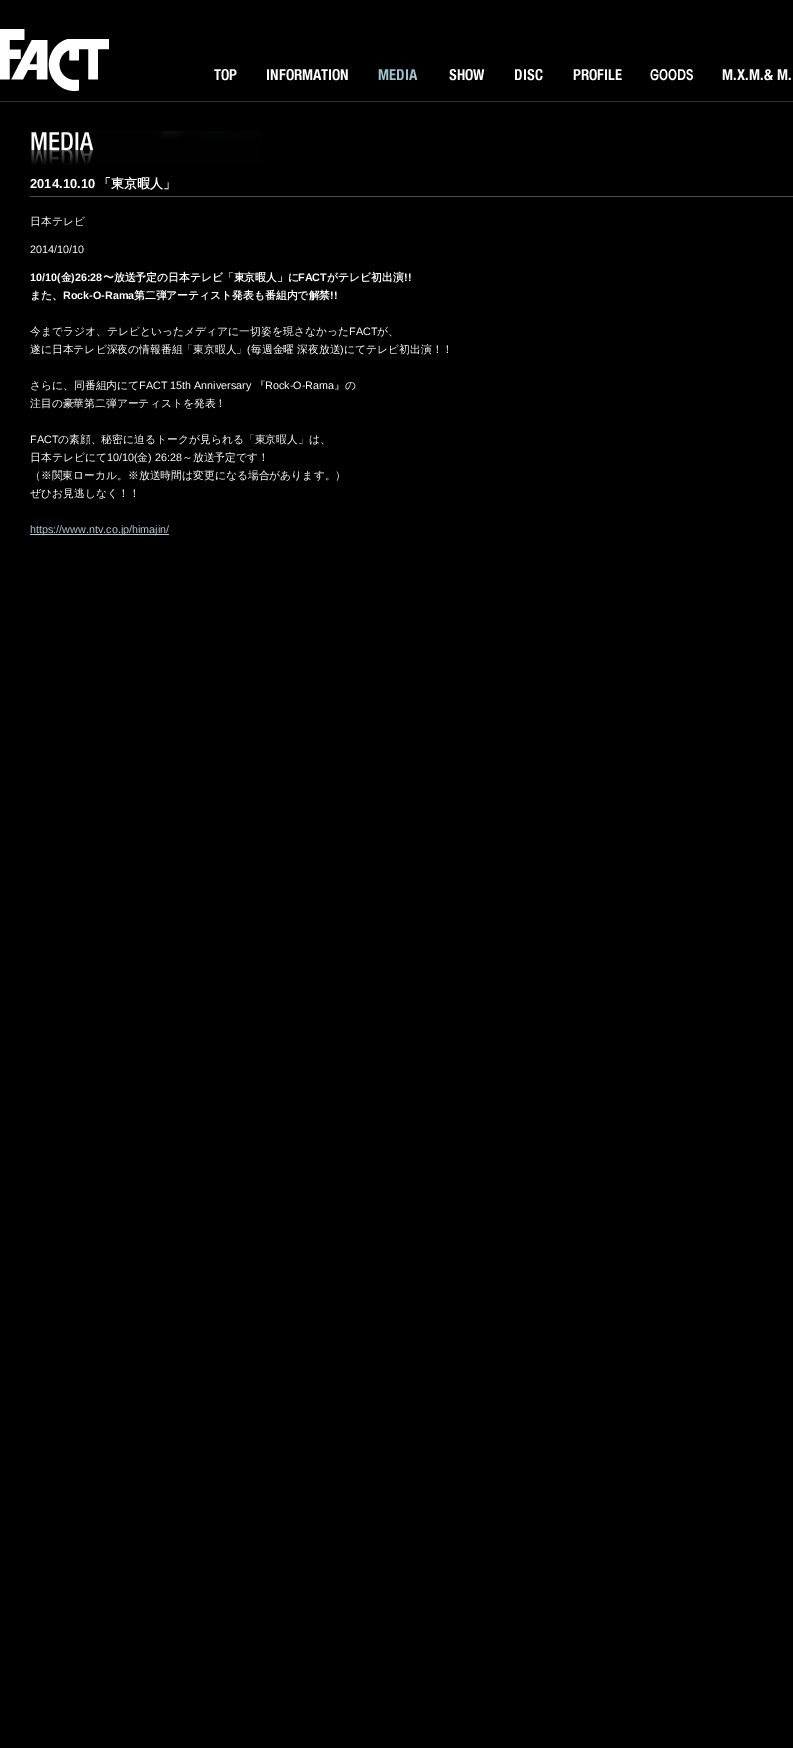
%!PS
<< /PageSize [793 1748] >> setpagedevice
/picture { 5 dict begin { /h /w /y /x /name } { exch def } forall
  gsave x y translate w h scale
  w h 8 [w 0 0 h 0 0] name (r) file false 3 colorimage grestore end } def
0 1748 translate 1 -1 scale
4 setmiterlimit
0 setgray
0 0 793 1748 rectfill
0.2 setgray
0 101 793 1 rectfill
(img1.rgb) 0 29 109 62 picture
(img2.rgb) 202 68 35 13 picture
(img3.rgb) 252 68 96 13 picture
(img4.rgb) 378 68 40 12 picture
(img5.rgb) 363 69 19 7 picture
(img6.rgb) 433 69 52 12 picture
(img7.rgb) 499 69 44 12 picture
(img8.rgb) 573 68 50 13 picture
(img9.rgb) 559 69 63 12 picture
(img10.rgb) 637 69 56 12 picture
(img11.rgb) 707 69 84 12 picture
(img12.rgb) 30 131 232 34 picture
0.302 setgray
30 196 763 1 rectfill
/LiberationSans-Bold [13 0 0 -13 0 0] selectfont
1 setgray
30 188 moveto (2014.10.10) show
/WenQuanYiZenHei-Bold [13 0 0 -13 0 0] selectfont
98 188 moveto (「東京暇人」) show
/WenQuanYiZenHei-Medium [10.8 0 0 -10.8 0 0] selectfont
30 225 moveto (日本テレビ) show
/LiberationSans-Regular [10.8 0 0 -10.8 0 0] selectfont
30 253 moveto (2014/10/10) show
/LiberationSans-Bold [10.8 0 0 -10.8 0 0] selectfont
30 281 moveto (10/10\() show
/WenQuanYiZenHei-Bold [10.8 0 0 -10.8 0 0] selectfont
61 281 moveto (金) show
/LiberationSans-Bold [10.8 0 0 -10.8 0 0] selectfont
71 281 moveto (\)26:28) show
/WenQuanYiZenHei-Bold [10.8 0 0 -10.8 0 0] selectfont
103 281 moveto (〜放送予定の日本テレビ「東京暇人」に) show
/LiberationSans-Bold [10.8 0 0 -10.8 0 0] selectfont
298 281 moveto (FACT) show
/WenQuanYiZenHei-Bold [10.8 0 0 -10.8 0 0] selectfont
327 281 moveto (がテレビ初出演) show
/LiberationSans-Bold [10.8 0 0 -10.8 0 0] selectfont
404 281 moveto (!!) show
/WenQuanYiZenHei-Bold [10.8 0 0 -10.8 0 0] selectfont
30 299 moveto (また、) show
/LiberationSans-Bold [10.8 0 0 -10.8 0 0] selectfont
63 299 moveto (Rock-O-Rama) show
/WenQuanYiZenHei-Bold [10.8 0 0 -10.8 0 0] selectfont
134 299 moveto (第二弾アーティスト発表も番組内で解禁) show
/LiberationSans-Bold [10.8 0 0 -10.8 0 0] selectfont
330 299 moveto (!!) show
/WenQuanYiZenHei-Medium [10.8 0 0 -10.8 0 0] selectfont
30 335 moveto (今までラジオ、テレビといったメディアに一切姿を現さなかった) show
/LiberationSans-Regular [10.8 0 0 -10.8 0 0] selectfont
349 335 moveto (FACT) show
/WenQuanYiZenHei-Medium [10.8 0 0 -10.8 0 0] selectfont
377 335 moveto (が、) show
30 353 moveto (遂に日本テレビ深夜の情報番組「東京暇人」) show
/LiberationSans-Regular [10.8 0 0 -10.8 0 0] selectfont
247 353 moveto (\() show
/WenQuanYiZenHei-Medium [10.8 0 0 -10.8 0 0] selectfont
251 353 moveto (毎週金曜 深夜放送) show
/LiberationSans-Regular [10.8 0 0 -10.8 0 0] selectfont
340 353 moveto (\)) show
/WenQuanYiZenHei-Medium [10.8 0 0 -10.8 0 0] selectfont
344 353 moveto (にてテレビ初出演！！) show
30 389 moveto (さらに、同番組内にて) show
/LiberationSans-Regular [10.8 0 0 -10.8 0 0] selectfont
139 389 moveto (FACT 15th Anniversary) show
/WenQuanYiZenHei-Medium [10.8 0 0 -10.8 0 0] selectfont
255 389 moveto (『) show
/LiberationSans-Regular [10.8 0 0 -10.8 0 0] selectfont
265 389 moveto (Rock-O-Rama) show
/WenQuanYiZenHei-Medium [10.8 0 0 -10.8 0 0] selectfont
334 389 moveto (』の) show
30 407 moveto (注目の豪華第二弾アーティストを発表！) show
/LiberationSans-Regular [10.8 0 0 -10.8 0 0] selectfont
30 443 moveto (FACT) show
/WenQuanYiZenHei-Medium [10.8 0 0 -10.8 0 0] selectfont
58 443 moveto (の素顔、秘密に迫るトークが見られる「東京暇人」は、) show
30 461 moveto (日本テレビにて) show
/LiberationSans-Regular [10.8 0 0 -10.8 0 0] selectfont
107 461 moveto (10/10\() show
/WenQuanYiZenHei-Medium [10.8 0 0 -10.8 0 0] selectfont
137 461 moveto (金) show
/LiberationSans-Regular [10.8 0 0 -10.8 0 0] selectfont
148 461 moveto (\) 26:28) show
/WenQuanYiZenHei-Medium [10.8 0 0 -10.8 0 0] selectfont
182 461 moveto (～放送予定です！) show
30 479 moveto (（※関東ローカル。※放送時間は変更になる場合があります。）) show
30 497 moveto (ぜひお見逃しなく！！) show
0.702 0.78 0.824 setrgbcolor
30 534 139 1 rectfill
/LiberationSans-Regular [10.8 0 0 -10.8 0 0] selectfont
30 533 moveto (https://www.ntv.co.jp/himajin/) show
showpage
